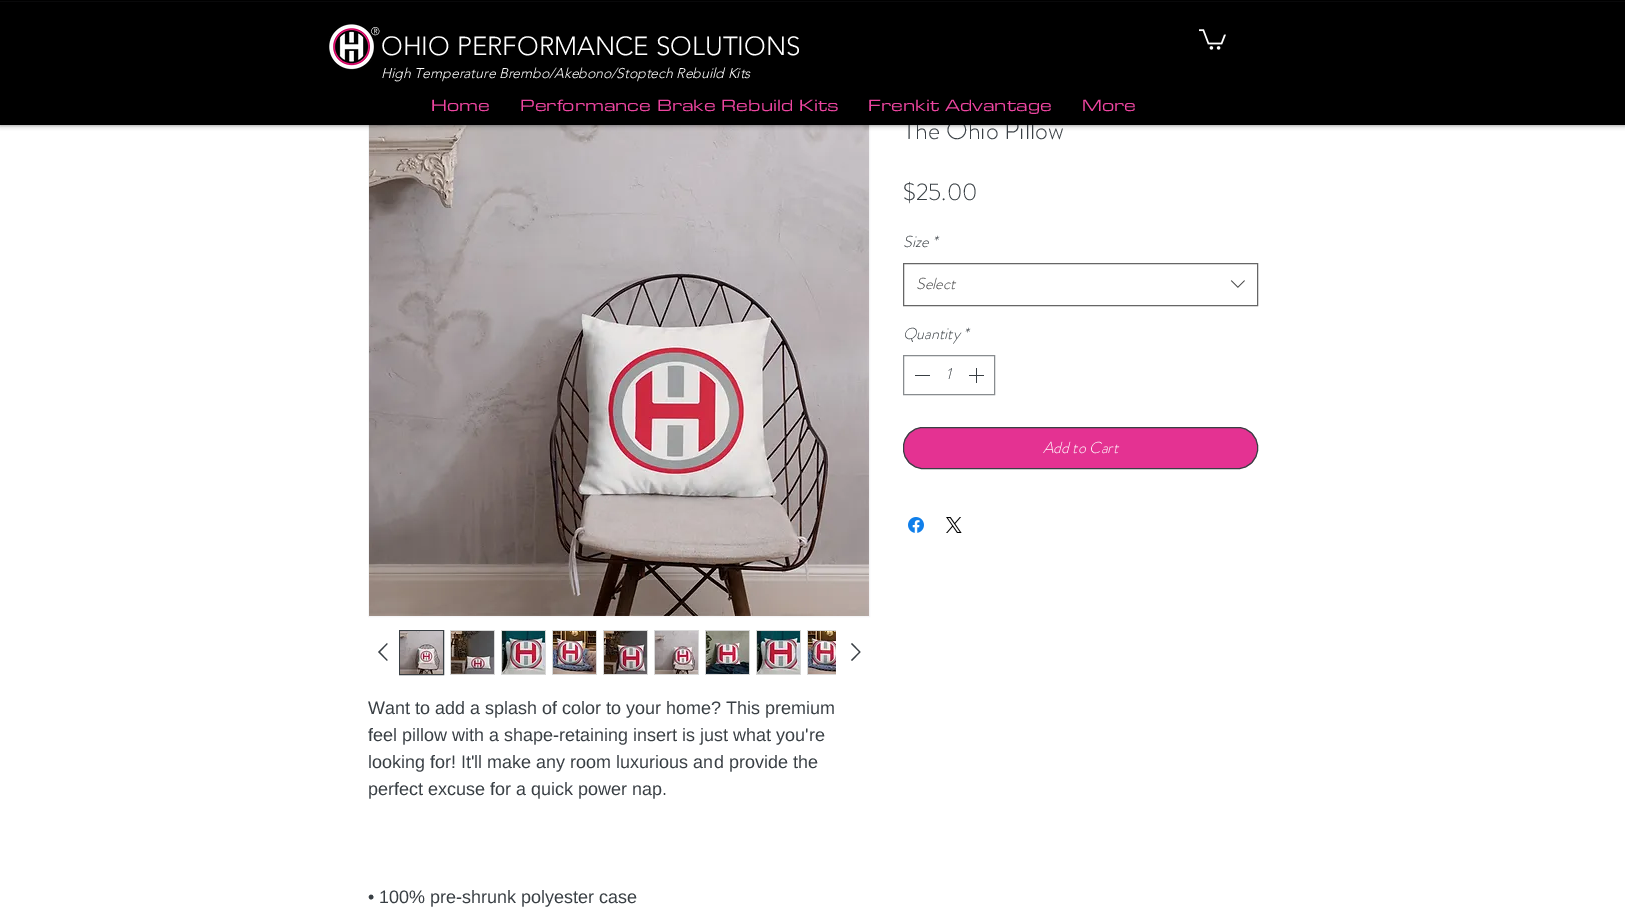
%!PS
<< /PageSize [1625 923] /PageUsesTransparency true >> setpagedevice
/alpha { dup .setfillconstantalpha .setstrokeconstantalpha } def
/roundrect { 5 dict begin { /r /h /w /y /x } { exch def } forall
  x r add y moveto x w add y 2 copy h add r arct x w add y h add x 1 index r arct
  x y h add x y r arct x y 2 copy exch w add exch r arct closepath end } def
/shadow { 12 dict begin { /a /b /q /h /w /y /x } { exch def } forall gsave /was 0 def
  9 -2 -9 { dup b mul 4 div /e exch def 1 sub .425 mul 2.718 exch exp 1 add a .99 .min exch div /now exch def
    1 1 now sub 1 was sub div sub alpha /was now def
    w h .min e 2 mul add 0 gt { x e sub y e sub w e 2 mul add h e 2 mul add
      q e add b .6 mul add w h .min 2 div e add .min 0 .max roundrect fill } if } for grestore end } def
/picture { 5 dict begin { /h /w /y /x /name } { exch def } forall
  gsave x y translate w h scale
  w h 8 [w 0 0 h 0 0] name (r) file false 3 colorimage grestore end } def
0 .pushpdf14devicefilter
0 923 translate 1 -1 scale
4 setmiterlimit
1 setgray
0 0 1625 923 rectfill
0.961 0.961 0.965 setrgbcolor
368.5 115.5 501 501 rectstroke
(img7.rgb) 369 125 500 491 picture
0 setgray
0 0 1625 125 0 2.5 0.5 shadow
/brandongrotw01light-Light [26 0 0 -26 0 0] selectfont
0.224 0.247 0.267 setrgbcolor
903 139 moveto (The Ohio Pillow) show
0 setgray
0 0 1625 125 rectfill
0.035 0.035 0.039 setrgbcolor
0 1 1625 1 rectfill
(img1.rgb) 329 24 45 46 picture
/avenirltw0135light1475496-Light [11 0 0 -11 0 0] selectfont
1 setgray
371 35 moveto (®) show
/avenirltw0135light1475496-Light [26 0 0 -26 0 0] selectfont
381 55 moveto (OHIO PERFORMANCE SOLUTIONS) show
(img2.rgb) 1199 29 27 21 picture
/avenirltw0135light1475496-LightItalic [14 0 0 -14 0 0] selectfont
381 78 moveto (High Temperature Brembo/Akebono/Stoptech Rebuild Kits) show
/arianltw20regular-Regular [20 0 0 -20 0 0] selectfont
0.929 0.271 0.627 setrgbcolor
431 111 moveto (Home) show
520 111 moveto (Performance Brake Rebuild Kits) show
868 111 moveto (Frenkit Advantage) show
1082 111 moveto (More) show
/brandongrotw01light-Light [24 0 0 -24 0 0] selectfont
0.224 0.247 0.267 setrgbcolor
903 200 moveto ($25.00) show
/brandongrotw01light-LightItalic [16 0 0 -16 0 0] selectfont
903 247 moveto (Size) show
932 247 moveto (*) show
0.4 setgray
903.5 263.5 354 42 rectstroke
0.267 setgray
916 289 moveto (Select) show
(img3.rgb) 1230 280 15 8 picture
0.224 0.247 0.267 setrgbcolor
903 339 moveto (Quantity) show
963 339 moveto (*) show
0.533 0.549 0.561 setrgbcolor
903.5 355.5 91 39 rectstroke
0.224 0.247 0.267 setrgbcolor
915 375 15 1 rectfill
946 379 moveto (1) show
(img4.rgb) 969 368 15 15 picture
0.894 0.196 0.573 setrgbcolor
903.5 427.5 354 41 19.5 roundrect gsave fill grestore
0.224 0.247 0.267 setrgbcolor
stroke
1 setgray
1043 453 moveto (Add to Cart) show
(img5.rgb) 908 517 16 16 picture
(img6.rgb) 946 517 16 16 picture
0.224 0.247 0.267 setrgbcolor
newpath 387 643 moveto 387.5 644 lineto 380 652 lineto 387.5 660 lineto 387 661 lineto 378 652 lineto closepath eofill
399.5 630.5 44 44 rectstroke
(img8.rgb) 400 631 43 43 picture
0.847 setgray
450 630 45 45 rectfill
(img9.rgb) 451 631 43 43 picture
501 630 45 45 rectfill
(img10.rgb) 502 631 43 43 picture
552 630 45 45 rectfill
(img11.rgb) 553 631 43 43 picture
603 630 45 45 rectfill
(img12.rgb) 604 631 43 43 picture
654 630 45 45 rectfill
(img13.rgb) 655 631 43 43 picture
705 630 45 45 rectfill
(img14.rgb) 706 631 43 43 picture
756 630 45 45 rectfill
(img15.rgb) 757 631 43 43 picture
807 630 29 45 rectfill
(img16.rgb) 808 631 28 43 picture
0.224 0.247 0.267 setrgbcolor
newpath 852 643 moveto 860.5 652 lineto 852 661 lineto 851 660 lineto 859 652 lineto 851 644 lineto closepath eofill
/LiberationSans-Regular [18 0 0 -18 0 0] selectfont
368 714 moveto (Want to add a splash of color to your home? This premium) show
368 741 moveto (feel pillow with a shape-retaining insert is just what you're) show
368 768 moveto (looking for! It'll make any room luxurious and provide the) show
368 795 moveto (perfect excuse for a quick power nap.) show
368 903 moveto (• 100% pre-shrunk polyester case) show
.poppdf14devicefilter showpage
